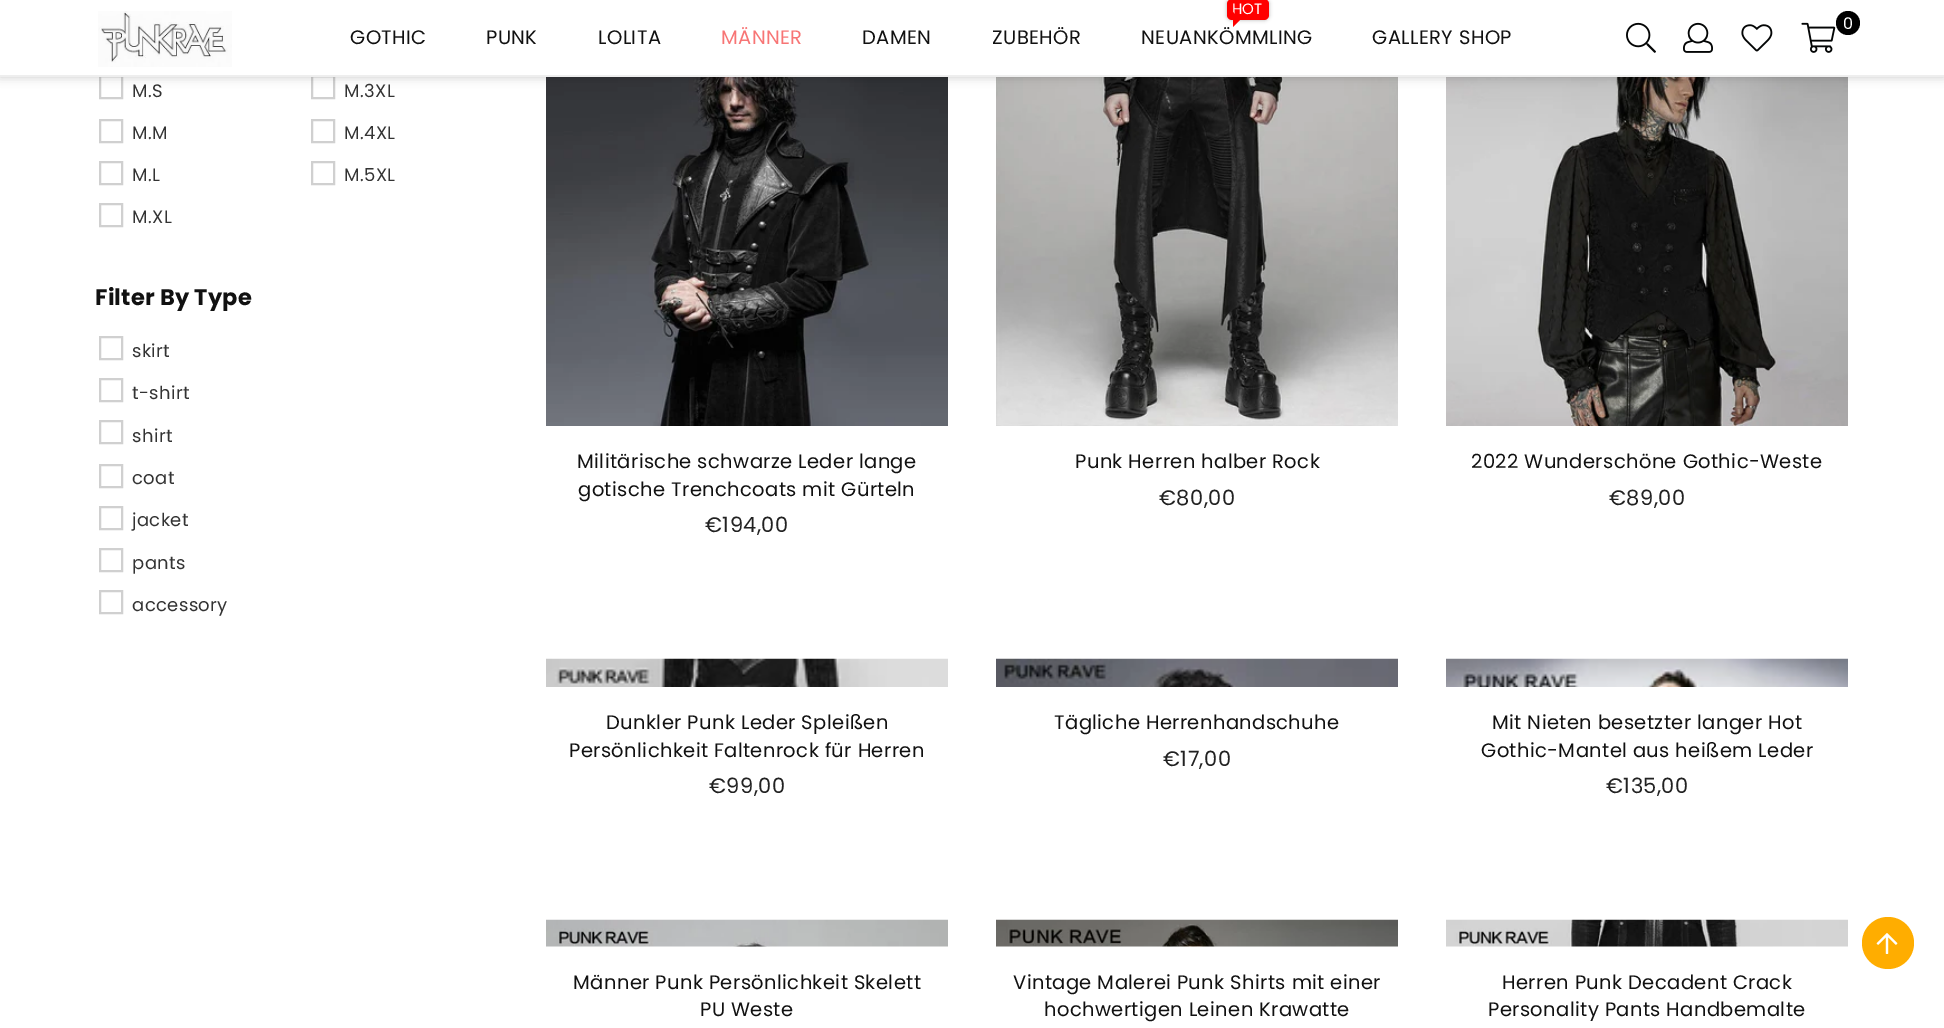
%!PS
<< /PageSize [1944 1028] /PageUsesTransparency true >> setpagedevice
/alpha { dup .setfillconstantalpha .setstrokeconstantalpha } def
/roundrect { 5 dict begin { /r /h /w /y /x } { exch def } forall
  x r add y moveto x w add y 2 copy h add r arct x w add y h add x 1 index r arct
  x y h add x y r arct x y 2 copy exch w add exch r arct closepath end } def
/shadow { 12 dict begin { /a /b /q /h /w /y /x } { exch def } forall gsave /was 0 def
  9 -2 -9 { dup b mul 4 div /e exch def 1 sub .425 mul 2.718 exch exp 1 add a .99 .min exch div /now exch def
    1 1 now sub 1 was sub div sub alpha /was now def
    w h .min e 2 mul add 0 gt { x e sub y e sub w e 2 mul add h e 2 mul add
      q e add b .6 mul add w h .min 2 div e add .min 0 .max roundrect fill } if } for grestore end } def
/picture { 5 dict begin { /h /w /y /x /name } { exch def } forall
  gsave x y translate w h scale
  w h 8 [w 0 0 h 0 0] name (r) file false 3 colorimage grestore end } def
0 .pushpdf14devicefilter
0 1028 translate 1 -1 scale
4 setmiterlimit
1 setgray
0 0 1944 1028 rectfill
0.816 setgray
2 setlinewidth
100 76 22 22 rectstroke
312 76 22 22 rectstroke
(img6.rgb) 546 77 402 349 picture
(img7.rgb) 996 77 402 349 picture
(img8.rgb) 1446 77 402 349 picture
0 setgray
0 0 1944 77 0 5 0.2 shadow
1 setgray
0 0 1944 75 rectfill
0.933 setgray
0 75 1944 2 rectfill
(img1.rgb) 98 11 134 56 picture
/Poppins-Regular [19.5 0 0 -19.5 0 0] selectfont
0.067 setgray
350 44 moveto 0.4 0 (GOTHIC) ashow
486 44 moveto 0.4 0 (PUNK) ashow
598 44 moveto 0.4 0 (LOLITA) ashow
0.969 0.459 0.459 setrgbcolor
721 44 moveto 0.4 0 (MÄNNER) ashow
0.067 setgray
862 44 moveto 0.4 0 (DAMEN) ashow
992 44 moveto 0.4 0 (ZUBEHÖR) ashow
0 setgray
1227 -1 42 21 5 2 0.3 shadow
1 0 0 setrgbcolor
1227 -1 42 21 5 roundrect fill
/Poppins-Regular [15 0 0 -15 0 0] selectfont
1 setgray
1232 14 moveto (HOT) show
1 0 0 setrgbcolor
newpath 1233 27 moveto 1233 12 lineto 1240.5 19.5 lineto closepath fill
/Poppins-Regular [19.5 0 0 -19.5 0 0] selectfont
0.067 setgray
1141 44 moveto 0.4 0 (NEUANKÖMMLING) ashow
1372 44 moveto 0.4 0 (GALLERY SHOP) ashow
(img2.rgb) 1626 22 30 31 picture
(img3.rgb) 1683 22 30 31 picture
(img4.rgb) 1741 24 32 28 picture
(img5.rgb) 1801 22 35 31 picture
0 setgray
newpath 1848 23 12 0 360 arc closepath fill
/Poppins-Regular [16 0 0 -16 0 0] selectfont
1 setgray
1843 29 moveto 0.4 0 (0) ashow
/Poppins-Regular [18 0 0 -18 0 0] selectfont
0.2 setgray
132 97 moveto 0.4 0 (M.S) ashow
344 97 moveto 0.4 0 (M.3XL) ashow
0.816 setgray
100 120 22 22 rectstroke
0.2 setgray
132 139 moveto 0.4 0 (M.M) ashow
0.816 setgray
312 120 22 22 rectstroke
0.2 setgray
344 139 moveto 0.4 0 (M.4XL) ashow
0.816 setgray
100 162 22 22 rectstroke
0.2 setgray
132 181 moveto 0.4 0 (M.L) ashow
0.816 setgray
312 162 22 22 rectstroke
0.2 setgray
344 181 moveto 0.4 0 (M.5XL) ashow
0.816 setgray
100 204 22 22 rectstroke
0.2 setgray
132 223 moveto 0.4 0 (M.XL) ashow
/Poppins-Bold [22.5 0 0 -22.5 0 0] selectfont
0.067 setgray
95 305 moveto 0.25 0 (Filter By Type) ashow
0.816 setgray
100 337 22 22 rectstroke
/Poppins-Regular [18 0 0 -18 0 0] selectfont
0.2 setgray
132 357 moveto 0.4 0 (skirt) ashow
0.816 setgray
100 379 22 22 rectstroke
0.2 setgray
132 399 moveto 0.4 0 (t-shirt) ashow
0.816 setgray
100 421 22 22 rectstroke
0.2 setgray
132 442 moveto 0.4 0 (shirt) ashow
0.816 setgray
100 465 22 22 rectstroke
0.2 setgray
132 484 moveto 0.4 0 (coat) ashow
0.816 setgray
100 507 22 22 rectstroke
0.2 setgray
132 526 moveto 0.4 0 (jacket) ashow
0.816 setgray
100 549 22 22 rectstroke
0.2 setgray
132 569 moveto 0.4 0 (pants) ashow
0.816 setgray
100 591 22 22 rectstroke
0.2 setgray
132 611 moveto 0.4 0 (accessory) ashow
/Poppins-Regular [19.5 0 0 -19.5 0 0] selectfont
0.067 setgray
577 468 moveto 0.4 0 (Militärische schwarze Leder lange) ashow
578 496 moveto 0.4 0 (gotische Trenchcoats mit Gürteln) ashow
/Poppins-Regular [21 0 0 -21 0 0] selectfont
0.133 setgray
705 532 moveto 0.4 0 (€194,00) ashow
/Poppins-Regular [19.5 0 0 -19.5 0 0] selectfont
0.067 setgray
1075 468 moveto 0.4 0 (Punk Herren halber Rock) ashow
/Poppins-Regular [21 0 0 -21 0 0] selectfont
0.133 setgray
1159 505 moveto 0.4 0 (€80,00) ashow
/Poppins-Regular [19.5 0 0 -19.5 0 0] selectfont
0.067 setgray
1471 468 moveto 0.4 0 (2022 Wunderschöne Gothic-Weste) ashow
/Poppins-Regular [21 0 0 -21 0 0] selectfont
0.133 setgray
1609 505 moveto 0.4 0 (€89,00) ashow
(img9.rgb) 546 658 402 29 picture
/Poppins-Regular [19.5 0 0 -19.5 0 0] selectfont
0.067 setgray
606 729 moveto 0.4 0 (Dunkler Punk Leder Spleißen) ashow
569 757 moveto 0.4 0 (Persönlichkeit Faltenrock für Herren) ashow
/Poppins-Regular [21 0 0 -21 0 0] selectfont
0.133 setgray
709 793 moveto 0.4 0 (€99,00) ashow
(img10.rgb) 996 658 402 29 picture
/Poppins-Regular [19.5 0 0 -19.5 0 0] selectfont
0.067 setgray
1054 729 moveto 0.4 0 (Tägliche Herrenhandschuhe) ashow
/Poppins-Regular [21 0 0 -21 0 0] selectfont
0.133 setgray
1163 766 moveto 0.4 0 (€17,00) ashow
(img11.rgb) 1446 658 402 29 picture
/Poppins-Regular [19.5 0 0 -19.5 0 0] selectfont
0.067 setgray
1492 729 moveto 0.4 0 (Mit Nieten besetzter langer Hot) ashow
1481 757 moveto 0.4 0 (Gothic-Mantel aus heißem Leder) ashow
/Poppins-Regular [21 0 0 -21 0 0] selectfont
0.133 setgray
1606 793 moveto 0.4 0 (€135,00) ashow
(img12.rgb) 546 919 402 28 picture
/Poppins-Regular [19.5 0 0 -19.5 0 0] selectfont
0.067 setgray
573 989 moveto 0.4 0 (Männer Punk Persönlichkeit Skelett) ashow
700 1016 moveto 0.4 0 (PU Weste) ashow
(img13.rgb) 996 919 402 28 picture
1013 989 moveto 0.4 0 (Vintage Malerei Punk Shirts mit einer) ashow
1044 1016 moveto 0.4 0 (hochwertigen Leinen Krawatte) ashow
(img14.rgb) 1446 919 402 28 picture
1502 989 moveto 0.4 0 (Herren Punk Decadent Crack) ashow
1488 1016 moveto 0.4 0 (Personality Pants Handbemalte) ashow
1 0.678 0 setrgbcolor
newpath 1888 943 26 0 360 arc closepath fill
(img15.rgb) 1876 933 22 21 picture
.poppdf14devicefilter showpage
